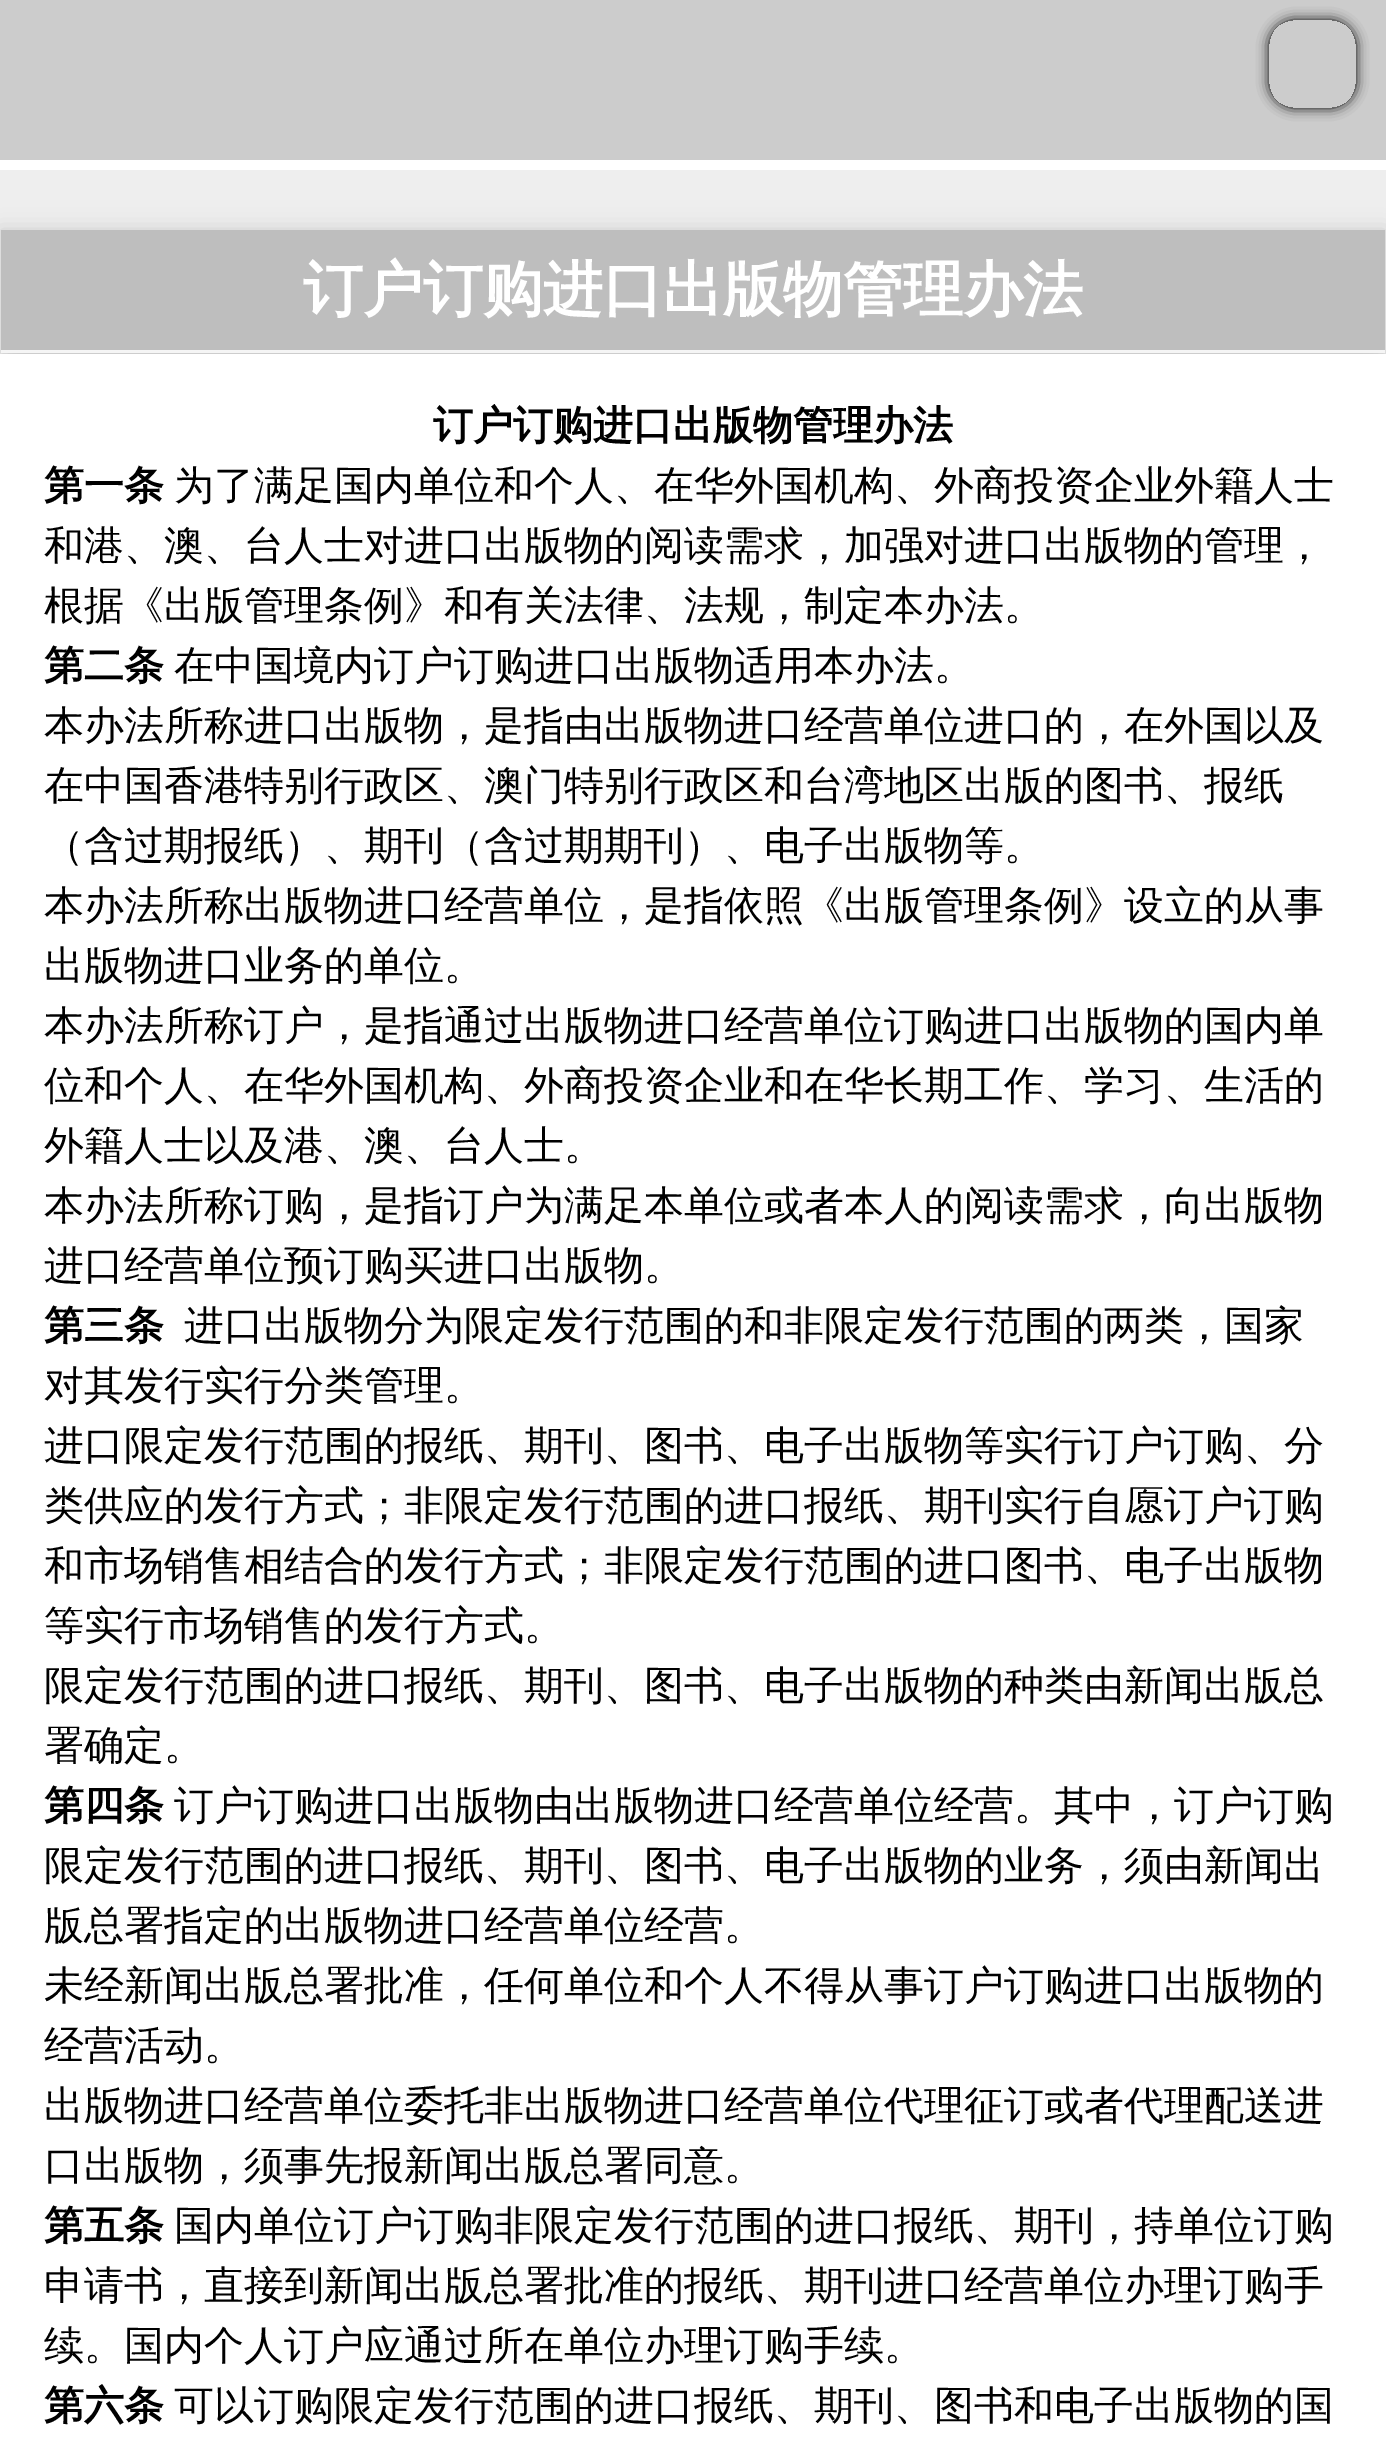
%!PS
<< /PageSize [1386 2437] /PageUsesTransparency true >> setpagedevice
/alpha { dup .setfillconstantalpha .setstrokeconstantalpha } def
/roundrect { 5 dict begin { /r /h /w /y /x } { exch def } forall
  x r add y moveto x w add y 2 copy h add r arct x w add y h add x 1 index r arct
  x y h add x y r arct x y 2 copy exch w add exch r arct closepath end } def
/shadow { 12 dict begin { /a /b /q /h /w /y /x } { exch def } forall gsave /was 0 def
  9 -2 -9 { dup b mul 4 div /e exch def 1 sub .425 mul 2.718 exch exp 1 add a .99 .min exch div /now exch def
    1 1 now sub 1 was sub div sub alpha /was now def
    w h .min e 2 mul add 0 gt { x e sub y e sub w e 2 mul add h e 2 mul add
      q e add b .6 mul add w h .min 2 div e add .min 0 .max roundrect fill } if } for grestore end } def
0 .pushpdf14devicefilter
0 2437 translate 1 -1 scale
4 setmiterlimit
1 setgray
0 0 1386 2437 rectfill
0.8 setgray
0 0 1386 160 rectfill
gsave
newpath 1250 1 moveto 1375 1 lineto 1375 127 lineto 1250 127 lineto closepath 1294 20 moveto 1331 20 lineto 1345 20 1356 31 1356 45 curveto 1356 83 lineto 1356 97 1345 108 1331 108 curveto 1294 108 lineto 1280 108 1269 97 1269 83 curveto 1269 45 lineto 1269 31 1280 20 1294 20 curveto closepath eoclip newpath
0 setgray
1269 20 87 88 25 6 1 shadow
grestore
0.933 setgray
0 170 1386 184 rectfill
0.8 setgray
0 230 1386 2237 0 10 1 shadow
0.745 setgray
1 230 1384 120 rectfill
0.961 setgray
1 350 1384 3 rectfill
/WenQuanYiZenHei-Bold [60 0 0 -60 0 0] selectfont
1 setgray
303 310 moveto (订户订购进口出版物管理办法) show
0 354 1386 2083 rectfill
/WenQuanYiZenHei-Bold [40 0 0 -40 0 0] selectfont
0 setgray
433 439 moveto (订户订购进口出版物管理办法) show
44 499 moveto (第一条) show
/WenQuanYiZenHei-Medium [40 0 0 -40 0 0] selectfont
174 499 moveto (为了满足国内单位和个人、在华外国机构、外商投资企业外籍人士) show
44 559 moveto (和港、澳、台人士对进口出版物的阅读需求，加强对进口出版物的管理，) show
44 619 moveto (根据《出版管理条例》和有关法律、法规，制定本办法。) show
/WenQuanYiZenHei-Bold [40 0 0 -40 0 0] selectfont
44 679 moveto (第二条) show
/WenQuanYiZenHei-Medium [40 0 0 -40 0 0] selectfont
174 679 moveto (在中国境内订户订购进口出版物适用本办法。) show
44 739 moveto (本办法所称进口出版物，是指由出版物进口经营单位进口的，在外国以及) show
44 799 moveto (在中国香港特别行政区、澳门特别行政区和台湾地区出版的图书、报纸) show
44 859 moveto (（含过期报纸）、期刊（含过期期刊）、电子出版物等。) show
44 919 moveto (本办法所称出版物进口经营单位，是指依照《出版管理条例》设立的从事) show
44 979 moveto (出版物进口业务的单位。) show
44 1039 moveto (本办法所称订户，是指通过出版物进口经营单位订购进口出版物的国内单) show
44 1099 moveto (位和个人、在华外国机构、外商投资企业和在华长期工作、学习、生活的) show
44 1159 moveto (外籍人士以及港、澳、台人士。) show
44 1219 moveto (本办法所称订购，是指订户为满足本单位或者本人的阅读需求，向出版物) show
44 1279 moveto (进口经营单位预订购买进口出版物。) show
/WenQuanYiZenHei-Bold [40 0 0 -40 0 0] selectfont
44 1339 moveto (第三条) show
/WenQuanYiZenHei-Medium [40 0 0 -40 0 0] selectfont
184 1339 moveto (进口出版物分为限定发行范围的和非限定发行范围的两类，国家) show
44 1399 moveto (对其发行实行分类管理。) show
44 1459 moveto (进口限定发行范围的报纸、期刊、图书、电子出版物等实行订户订购、分) show
44 1519 moveto (类供应的发行方式；非限定发行范围的进口报纸、期刊实行自愿订户订购) show
44 1579 moveto (和市场销售相结合的发行方式；非限定发行范围的进口图书、电子出版物) show
44 1639 moveto (等实行市场销售的发行方式。) show
44 1699 moveto (限定发行范围的进口报纸、期刊、图书、电子出版物的种类由新闻出版总) show
44 1759 moveto (署确定。) show
/WenQuanYiZenHei-Bold [40 0 0 -40 0 0] selectfont
44 1819 moveto (第四条) show
/WenQuanYiZenHei-Medium [40 0 0 -40 0 0] selectfont
174 1819 moveto (订户订购进口出版物由出版物进口经营单位经营。其中，订户订购) show
44 1879 moveto (限定发行范围的进口报纸、期刊、图书、电子出版物的业务，须由新闻出) show
44 1939 moveto (版总署指定的出版物进口经营单位经营。) show
44 1999 moveto (未经新闻出版总署批准，任何单位和个人不得从事订户订购进口出版物的) show
44 2059 moveto (经营活动。) show
44 2119 moveto (出版物进口经营单位委托非出版物进口经营单位代理征订或者代理配送进) show
44 2179 moveto (口出版物，须事先报新闻出版总署同意。) show
/WenQuanYiZenHei-Bold [40 0 0 -40 0 0] selectfont
44 2239 moveto (第五条) show
/WenQuanYiZenHei-Medium [40 0 0 -40 0 0] selectfont
174 2239 moveto (国内单位订户订购非限定发行范围的进口报纸、期刊，持单位订购) show
44 2299 moveto (申请书，直接到新闻出版总署批准的报纸、期刊进口经营单位办理订购手) show
44 2359 moveto (续。国内个人订户应通过所在单位办理订购手续。) show
/WenQuanYiZenHei-Bold [40 0 0 -40 0 0] selectfont
44 2419 moveto (第六条) show
/WenQuanYiZenHei-Medium [40 0 0 -40 0 0] selectfont
174 2419 moveto (可以订购限定发行范围的进口报纸、期刊、图书和电子出版物的国) show
.poppdf14devicefilter showpage
